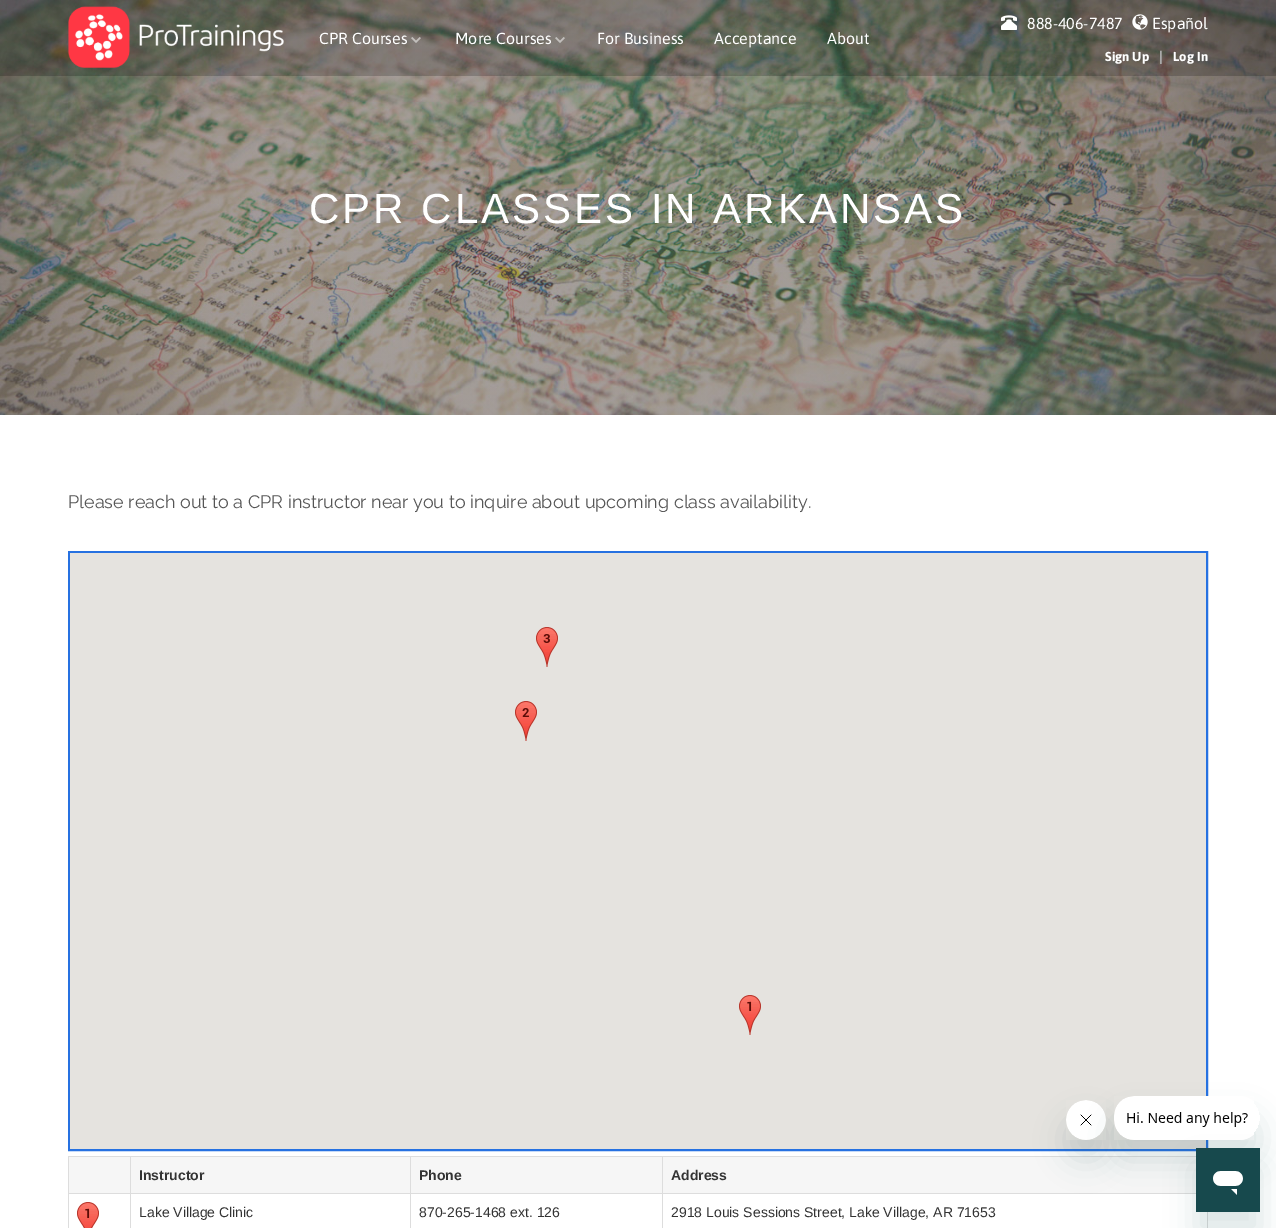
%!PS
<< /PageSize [1276 1228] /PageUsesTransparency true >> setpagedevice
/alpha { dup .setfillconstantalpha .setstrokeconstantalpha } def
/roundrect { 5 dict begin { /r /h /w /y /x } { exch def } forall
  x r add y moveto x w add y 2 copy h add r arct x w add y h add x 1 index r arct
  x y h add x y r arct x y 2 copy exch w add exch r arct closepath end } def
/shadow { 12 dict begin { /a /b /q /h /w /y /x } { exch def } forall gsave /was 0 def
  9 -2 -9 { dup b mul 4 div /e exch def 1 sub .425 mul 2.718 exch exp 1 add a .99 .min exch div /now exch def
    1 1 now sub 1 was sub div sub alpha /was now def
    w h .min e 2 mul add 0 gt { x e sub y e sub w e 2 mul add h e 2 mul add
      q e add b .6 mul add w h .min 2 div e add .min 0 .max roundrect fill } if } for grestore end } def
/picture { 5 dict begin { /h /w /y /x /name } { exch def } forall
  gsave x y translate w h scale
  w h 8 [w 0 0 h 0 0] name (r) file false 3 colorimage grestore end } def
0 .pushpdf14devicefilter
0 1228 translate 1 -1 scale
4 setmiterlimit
1 setgray
0 0 1276 1228 rectfill
(img6.rgb) 0 0 1276 415 picture
0.2 alpha
0 setgray
0 0 1276 76 rectfill
1 alpha
(img1.rgb) 68 6 216 62 picture
/Asap-Regular [16 0 0 -16 0 0] selectfont
1 setgray
319 44 moveto (CPR Courses) show
(img2.rgb) 411 37 10 6 picture
455 44 moveto (More Courses) show
(img3.rgb) 555 37 10 6 picture
597 44 moveto (For Business) show
714 44 moveto (Acceptance) show
827 44 moveto (About) show
(img4.rgb) 1001 15 16 15 picture
1027 29 moveto (888-406-7487) show
(img5.rgb) 1132 14 16 16 picture
1152 29 moveto (Español) show
/Asap-Bold [13 0 0 -13 0 0] selectfont
1105 61 moveto (Sign Up) show
/LiberationSans-Bold [14 0 0 -14 0 0] selectfont
0.667 setgray
1159 61 moveto (|) show
/Asap-Bold [13 0 0 -13 0 0] selectfont
1 setgray
1173 61 moveto (Log In) show
/LiberationSans-Regular [42 0 0 -42 0 0] selectfont
309 223 moveto 3 0 (CPR CLASSES IN ARKANSAS) ashow
/Raleway-Regular [18 0 0 -18 0 0] selectfont
0.333 setgray
68 508 moveto (Please reach out to a CPR instructor near you to inquire about upcoming class availability.) show
0.149 0.443 0.882 setrgbcolor
2 setlinewidth
69 552 1138 598 rectstroke
0.898 0.89 0.875 setrgbcolor
70 553 1136 596 rectfill
(img7.rgb) 536 627 22 40 picture
(img8.rgb) 515 701 22 40 picture
(img9.rgb) 739 995 22 40 picture
0.867 setgray
68 1156 1128 1 rectfill
1207 1212 1 16 rectfill
68 1156 1 72 rectfill
0.965 setgray
69 1157 61 36 rectfill
131 1157 279 36 rectfill
0.867 setgray
662 1193 534 1 rectfill
662 1193 1 35 rectfill
410 1193 253 1 rectfill
410 1193 1 35 rectfill
130 1193 281 1 rectfill
130 1193 1 35 rectfill
68 1193 63 1 rectfill
130 1156 1 38 rectfill
/LiberationSans-Bold [14 0 0 -14 0 0] selectfont
0.2 setgray
139 1180 moveto (Instructor) show
0.965 setgray
411 1157 251 36 rectfill
0.867 setgray
410 1156 1 38 rectfill
0.2 setgray
419 1180 moveto (Phone) show
0.965 setgray
663 1157 533 36 rectfill
0.867 setgray
662 1156 1 38 rectfill
0.2 setgray
671 1180 moveto (Address) show
(img10.rgb) 77 1202 22 26 picture
/LiberationSans-Regular [14 0 0 -14 0 0] selectfont
139 1217 moveto (Lake Village Clinic) show
419 1217 moveto (870-265-1468 ext. 126) show
671 1217 moveto (2918 Louis Sessions Street, Lake Village, AR 71653) show
0.09 0.286 0.302 setrgbcolor
1066 1120 40 40 20 15 0.15 shadow
(img12.rgb) 1066 1100 40 40 picture
gsave
newpath 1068 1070 moveto 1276 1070 lineto 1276 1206 lineto 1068 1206 lineto closepath 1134 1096 moveto 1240 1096 lineto 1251 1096 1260 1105 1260 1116 curveto 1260 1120 lineto 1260 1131 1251 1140 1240 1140 curveto 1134 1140 lineto 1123 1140 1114 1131 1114 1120 curveto 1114 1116 lineto 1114 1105 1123 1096 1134 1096 curveto closepath eoclip newpath
1114 1116 146 44 20 15 0.15 shadow
grestore
(img11.rgb) 1114 1096 140 44 picture
1196 1168 64 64 0 15 0.15 shadow
(img13.rgb) 1196 1148 64 64 picture
.poppdf14devicefilter showpage
